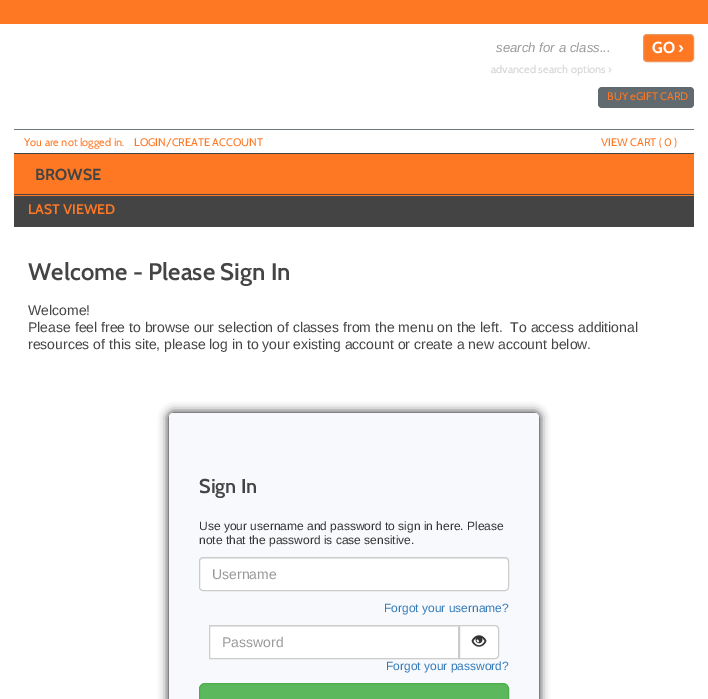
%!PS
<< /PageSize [708 699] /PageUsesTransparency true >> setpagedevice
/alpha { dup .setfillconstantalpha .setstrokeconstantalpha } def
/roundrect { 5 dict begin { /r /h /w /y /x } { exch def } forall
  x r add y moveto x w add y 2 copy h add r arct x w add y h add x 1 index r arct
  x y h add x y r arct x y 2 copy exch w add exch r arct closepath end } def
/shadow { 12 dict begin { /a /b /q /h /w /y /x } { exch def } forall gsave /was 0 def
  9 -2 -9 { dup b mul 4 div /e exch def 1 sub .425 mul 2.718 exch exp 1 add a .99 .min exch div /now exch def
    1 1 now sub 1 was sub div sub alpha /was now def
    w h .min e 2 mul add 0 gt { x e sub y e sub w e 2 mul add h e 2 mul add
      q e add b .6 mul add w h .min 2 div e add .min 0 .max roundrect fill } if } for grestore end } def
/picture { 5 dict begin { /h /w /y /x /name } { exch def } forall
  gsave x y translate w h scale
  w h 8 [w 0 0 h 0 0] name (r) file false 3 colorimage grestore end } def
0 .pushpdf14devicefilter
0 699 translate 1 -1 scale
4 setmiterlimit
1 setgray
0 0 708 699 rectfill
0.996 0.467 0.133 setrgbcolor
0 0 708 24 rectfill
/LiberationSans-Italic [13.25 0 0 -13.25 0 0] selectfont
0.6 setgray
496 52 moveto (search for a class...) show
0.996 0.467 0.133 setrgbcolor
643.5 34.5 50 27 3.5 roundrect gsave fill grestore
0.918 0.588 0.38 setrgbcolor
stroke
/Cabin-Bold [16 0 0 -16 0 0] selectfont
1 setgray
652 53 moveto (GO ›) show
/Cabin-Regular [11 0 0 -11 0 0] selectfont
0.82 0.827 0.831 setrgbcolor
491 73 moveto (advanced search options ›) show
0.38 0.416 0.435 setrgbcolor
598 87 96 21 4 roundrect fill
0.996 0.467 0.133 setrgbcolor
607 100 moveto (BUY eGIFT CARD) show
0.439 0.471 0.486 setrgbcolor
14 129 680 1 rectfill
0.231 0.255 0.267 setrgbcolor
14 153 680 1 rectfill
0.996 0.467 0.133 setrgbcolor
24 146 moveto (You are not logged in.) show
134 146 moveto (LOGIN/CREATE ACCOUNT) show
601 146 moveto (VIEW CART \( 0 \)) show
14 154 680 40 rectfill
0.267 setgray
14 194 680 1 rectfill
/Cabin-Bold [16 0 0 -16 0 0] selectfont
35 180 moveto (BROWSE) show
14 196 680 31 rectfill
0.996 0.467 0.133 setrgbcolor
14 195 680 1 rectfill
/Cabin-SemiBold [14 0 0 -14 0 0] selectfont
28 214 moveto (LAST VIEWED) show
/Cabin-SemiBold [24 0 0 -24 0 0] selectfont
0.267 setgray
28 280 moveto (Welcome - Please Sign In) show
/LiberationSans-Regular [14 0 0 -14 0 0] selectfont
28 315 moveto (Welcome!) show
28 332 moveto (Please feel free to browse our selection of classes from the menu on the left.  To access additional) show
28 349 moveto (resources of this site, please log in to your existing account or create a new account below.) show
0 setgray
169 413 370 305 4 5 1 shadow
0.973 0.976 0.988 setrgbcolor
169 413 370 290 4 roundrect fill
/Cabin-SemiBold [20 0 0 -20 0 0] selectfont
0.267 setgray
199 493 moveto (Sign In) show
/LiberationSans-Regular [12 0 0 -12 0 0] selectfont
0.2 setgray
199 530 moveto (Use your username and password to sign in here. Please) show
199 544 moveto (note that the password is case sensitive.) show
1 setgray
199 557 310 34 4 roundrect fill
0.925 setgray
newpath 203 559 moveto 505 559 lineto 507 559 508 560 508 562 curveto 507 559 lineto 506 558 lineto 203 558 lineto 201 558 200 560 200 562 curveto 200 560 201 559 203 559 curveto closepath fill
0.8 setgray
199.5 557.5 309 33 3.5 roundrect stroke
/LiberationSans-Regular [14 0 0 -14 0 0] selectfont
0.6 setgray
212 579 moveto (Username) show
/LiberationSans-Regular [12 0 0 -12 0 0] selectfont
0.2 0.478 0.718 setrgbcolor
384 612 moveto (Forgot your username?) show
1 setgray
210 627 248 31 rectfill
0.925 setgray
210 626 248 1 rectfill
0.8 setgray
209.5 625.5 249 33 rectstroke
/LiberationSans-Regular [14 0 0 -14 0 0] selectfont
0.6 setgray
222 647 moveto (Password) show
1 setgray
newpath 459.5 625.5 moveto 495 625.5 lineto 497 625.5 498.5 627 498.5 629 curveto 498.5 655 lineto 498.5 657 497 658.5 495 658.5 curveto 459.5 658.5 lineto closepath gsave fill grestore
0.8 setgray
stroke
(img1.rgb) 471 635 16 12 picture
/LiberationSans-Regular [12 0 0 -12 0 0] selectfont
0.2 0.478 0.718 setrgbcolor
386 670 moveto (Forgot your password?) show
0.361 0.722 0.361 setrgbcolor
199.5 683.5 309 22 5.5 roundrect gsave fill grestore
0.298 0.682 0.298 setrgbcolor
stroke
.poppdf14devicefilter showpage
